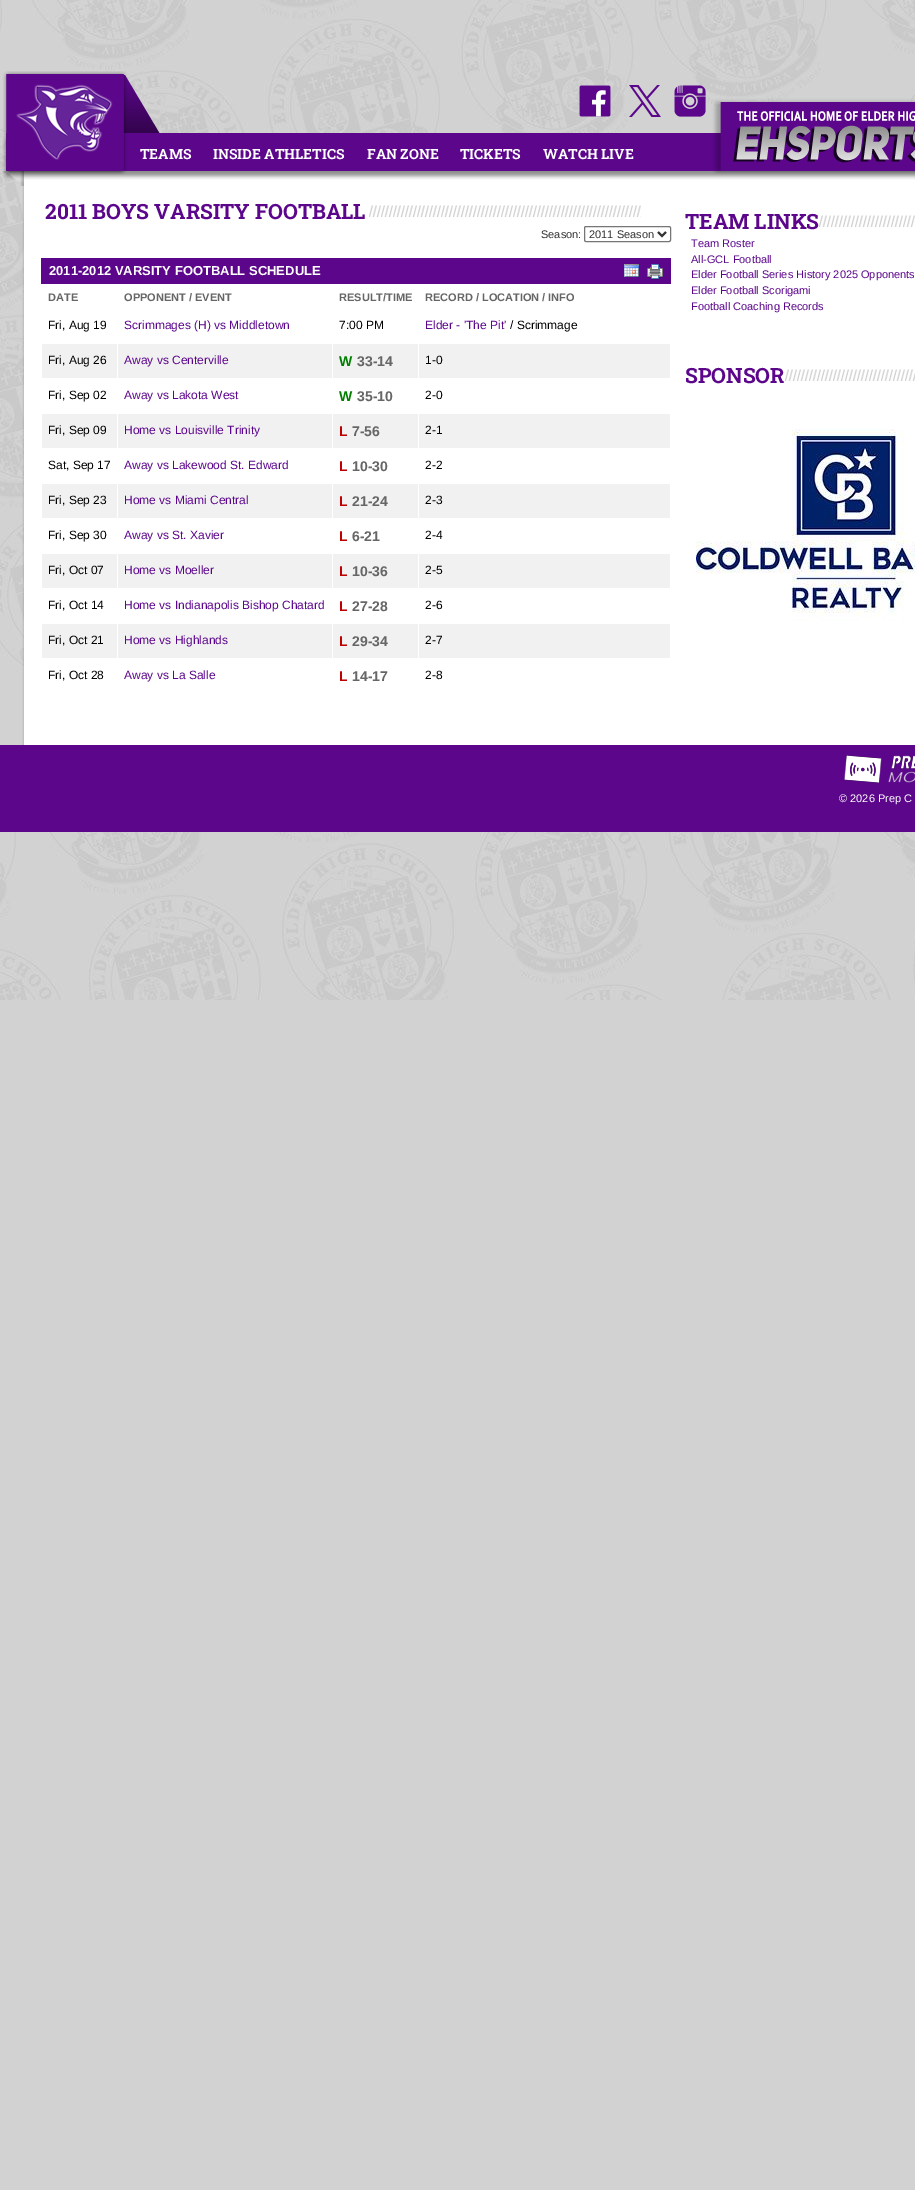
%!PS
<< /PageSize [915 2190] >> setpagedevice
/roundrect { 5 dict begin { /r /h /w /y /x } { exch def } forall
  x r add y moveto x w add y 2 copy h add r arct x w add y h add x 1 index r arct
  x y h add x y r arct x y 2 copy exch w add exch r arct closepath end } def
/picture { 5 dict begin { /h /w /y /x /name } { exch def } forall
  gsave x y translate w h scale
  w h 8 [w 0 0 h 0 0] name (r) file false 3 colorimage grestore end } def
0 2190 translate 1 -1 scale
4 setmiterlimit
0.824 setgray
0 0 915 2190 rectfill
(img1.rgb) 0 0 915 1000 picture
(img2.rgb) 2 71 913 115 picture
(img3.rgb) 16 84 97 76 picture
(img4.rgb) 579 85 32 32 picture
(img5.rgb) 629 85 32 32 picture
(img6.rgb) 674 85 32 32 picture
/RobotoSlab-Bold [14 0 0 -14 0 0] selectfont
1 setgray
140 159 moveto (TEAMS) show
213 159 moveto (INSIDE ATHLETICS) show
367 159 moveto (FAN ZONE) show
460 159 moveto (TICKETS) show
543 159 moveto (WATCH LIVE) show
(img7.rgb) 733 111 182 52 picture
(img8.rgb) 22 186 893 559 picture
/RobotoSlab-Bold [21 0 0 -21 0 0] selectfont
0.361 0.024 0.549 setrgbcolor
45 219 moveto (2011 BOYS VARSITY FOOTBALL) show
(img9.rgb) 369 205 272 12 picture
/LiberationSans-Regular [11 0 0 -11 0 0] selectfont
0.2 setgray
541 238 moveto (Season:) show
0.463 setgray
584.5 226.5 86 15 1.5 roundrect stroke
0.2 setgray
2 setlinewidth
newpath 658 232 moveto 662 236 lineto 666 232 lineto stroke
589 238 moveto (2011 Season) show
0.361 0.024 0.549 setrgbcolor
41 258 630 26 rectfill
/LiberationSans-Bold [13 0 0 -13 0 0] selectfont
1 setgray
49 275 moveto (2011-2012 VARSITY FOOTBALL SCHEDULE) show
(img10.rgb) 624 264 15 13 picture
(img11.rgb) 647 264 16 16 picture
/LiberationSans-Bold [11 0 0 -11 0 0] selectfont
0.4 setgray
48 301 moveto (DATE) show
124 301 moveto (OPPONENT / EVENT) show
339 301 moveto (RESULT/TIME) show
425 301 moveto (RECORD / LOCATION / INFO) show
/LiberationSans-Regular [12 0 0 -12 0 0] selectfont
0 setgray
48 329 moveto (Fri, Aug 19) show
0.361 0.024 0.549 setrgbcolor
124 329 moveto (Scrimmages \(H\) vs Middletown) show
0 setgray
339 329 moveto (7:00 PM) show
0.361 0.024 0.549 setrgbcolor
425 329 moveto (Elder - 'The Pit') show
0 setgray
510 329 moveto (/ Scrimmage) show
0.945 setgray
42 344 628 34 rectfill
0 setgray
48 364 moveto (Fri, Aug 26) show
1 setgray
117 343 1 36 rectfill
0.361 0.024 0.549 setrgbcolor
124 364 moveto (Away vs Centerville) show
1 setgray
332 343 1 36 rectfill
/LiberationSans-Bold [14 0 0 -14 0 0] selectfont
0 0.498 0 setrgbcolor
339 366 moveto (W) show
0.4 setgray
357 366 moveto (33-14) show
1 setgray
418 343 1 36 rectfill
/LiberationSans-Regular [12 0 0 -12 0 0] selectfont
0 setgray
425 364 moveto (1-0) show
48 399 moveto (Fri, Sep 02) show
0.361 0.024 0.549 setrgbcolor
124 399 moveto (Away vs Lakota West) show
/LiberationSans-Bold [14 0 0 -14 0 0] selectfont
0 0.498 0 setrgbcolor
339 401 moveto (W) show
0.4 setgray
357 401 moveto (35-10) show
/LiberationSans-Regular [12 0 0 -12 0 0] selectfont
0 setgray
425 399 moveto (2-0) show
0.945 setgray
42 414 628 34 rectfill
0 setgray
48 434 moveto (Fri, Sep 09) show
1 setgray
117 413 1 36 rectfill
0.361 0.024 0.549 setrgbcolor
124 434 moveto (Home vs Louisville Trinity) show
1 setgray
332 413 1 36 rectfill
/LiberationSans-Bold [14 0 0 -14 0 0] selectfont
0.749 0 0 setrgbcolor
339 436 moveto (L) show
0.4 setgray
352 436 moveto (7-56) show
1 setgray
418 413 1 36 rectfill
/LiberationSans-Regular [12 0 0 -12 0 0] selectfont
0 setgray
425 434 moveto (2-1) show
48 469 moveto (Sat, Sep 17) show
0.361 0.024 0.549 setrgbcolor
124 469 moveto (Away vs Lakewood St. Edward) show
/LiberationSans-Bold [14 0 0 -14 0 0] selectfont
0.749 0 0 setrgbcolor
339 471 moveto (L) show
0.4 setgray
352 471 moveto (10-30) show
/LiberationSans-Regular [12 0 0 -12 0 0] selectfont
0 setgray
425 469 moveto (2-2) show
0.945 setgray
42 484 628 34 rectfill
0 setgray
48 504 moveto (Fri, Sep 23) show
1 setgray
117 483 1 36 rectfill
0.361 0.024 0.549 setrgbcolor
124 504 moveto (Home vs Miami Central) show
1 setgray
332 483 1 36 rectfill
/LiberationSans-Bold [14 0 0 -14 0 0] selectfont
0.749 0 0 setrgbcolor
339 506 moveto (L) show
0.4 setgray
352 506 moveto (21-24) show
1 setgray
418 483 1 36 rectfill
/LiberationSans-Regular [12 0 0 -12 0 0] selectfont
0 setgray
425 504 moveto (2-3) show
48 539 moveto (Fri, Sep 30) show
0.361 0.024 0.549 setrgbcolor
124 539 moveto (Away vs St. Xavier) show
/LiberationSans-Bold [14 0 0 -14 0 0] selectfont
0.749 0 0 setrgbcolor
339 541 moveto (L) show
0.4 setgray
352 541 moveto (6-21) show
/LiberationSans-Regular [12 0 0 -12 0 0] selectfont
0 setgray
425 539 moveto (2-4) show
0.945 setgray
42 554 628 34 rectfill
0 setgray
48 574 moveto (Fri, Oct 07) show
1 setgray
117 553 1 36 rectfill
0.361 0.024 0.549 setrgbcolor
124 574 moveto (Home vs Moeller) show
1 setgray
332 553 1 36 rectfill
/LiberationSans-Bold [14 0 0 -14 0 0] selectfont
0.749 0 0 setrgbcolor
339 576 moveto (L) show
0.4 setgray
352 576 moveto (10-36) show
1 setgray
418 553 1 36 rectfill
/LiberationSans-Regular [12 0 0 -12 0 0] selectfont
0 setgray
425 574 moveto (2-5) show
48 609 moveto (Fri, Oct 14) show
0.361 0.024 0.549 setrgbcolor
124 609 moveto (Home vs Indianapolis Bishop Chatard) show
/LiberationSans-Bold [14 0 0 -14 0 0] selectfont
0.749 0 0 setrgbcolor
339 611 moveto (L) show
0.4 setgray
352 611 moveto (27-28) show
/LiberationSans-Regular [12 0 0 -12 0 0] selectfont
0 setgray
425 609 moveto (2-6) show
0.945 setgray
42 624 628 34 rectfill
0 setgray
48 644 moveto (Fri, Oct 21) show
1 setgray
117 623 1 36 rectfill
0.361 0.024 0.549 setrgbcolor
124 644 moveto (Home vs Highlands) show
1 setgray
332 623 1 36 rectfill
/LiberationSans-Bold [14 0 0 -14 0 0] selectfont
0.749 0 0 setrgbcolor
339 646 moveto (L) show
0.4 setgray
352 646 moveto (29-34) show
1 setgray
418 623 1 36 rectfill
/LiberationSans-Regular [12 0 0 -12 0 0] selectfont
0 setgray
425 644 moveto (2-7) show
48 679 moveto (Fri, Oct 28) show
0.361 0.024 0.549 setrgbcolor
124 679 moveto (Away vs La Salle) show
/LiberationSans-Bold [14 0 0 -14 0 0] selectfont
0.749 0 0 setrgbcolor
339 681 moveto (L) show
0.4 setgray
352 681 moveto (14-17) show
/LiberationSans-Regular [12 0 0 -12 0 0] selectfont
0 setgray
425 679 moveto (2-8) show
/RobotoSlab-Bold [21 0 0 -21 0 0] selectfont
0.361 0.024 0.549 setrgbcolor
685 229 moveto (TEAM LINKS) show
(img12.rgb) 819 215 96 12 picture
/LiberationSans-Regular [11 0 0 -11 0 0] selectfont
691 247 moveto (Team Roster) show
691 263 moveto (All-GCL Football) show
691 278 moveto (Elder Football Series History 2025 Opponents) show
691 294 moveto (Elder Football Scorigami) show
691 310 moveto (Football Coaching Records) show
/RobotoSlab-Bold [21 0 0 -21 0 0] selectfont
685 383 moveto (SPONSOR) show
(img13.rgb) 785 369 130 12 picture
(img14.rgb) 696 429 219 192 picture
0 745 915 87 rectfill
(img15.rgb) 844 755 71 28 picture
/LiberationSans-Regular [11 0 0 -11 0 0] selectfont
1 setgray
839 802 moveto (© 2026 Prep C) show
showpage
